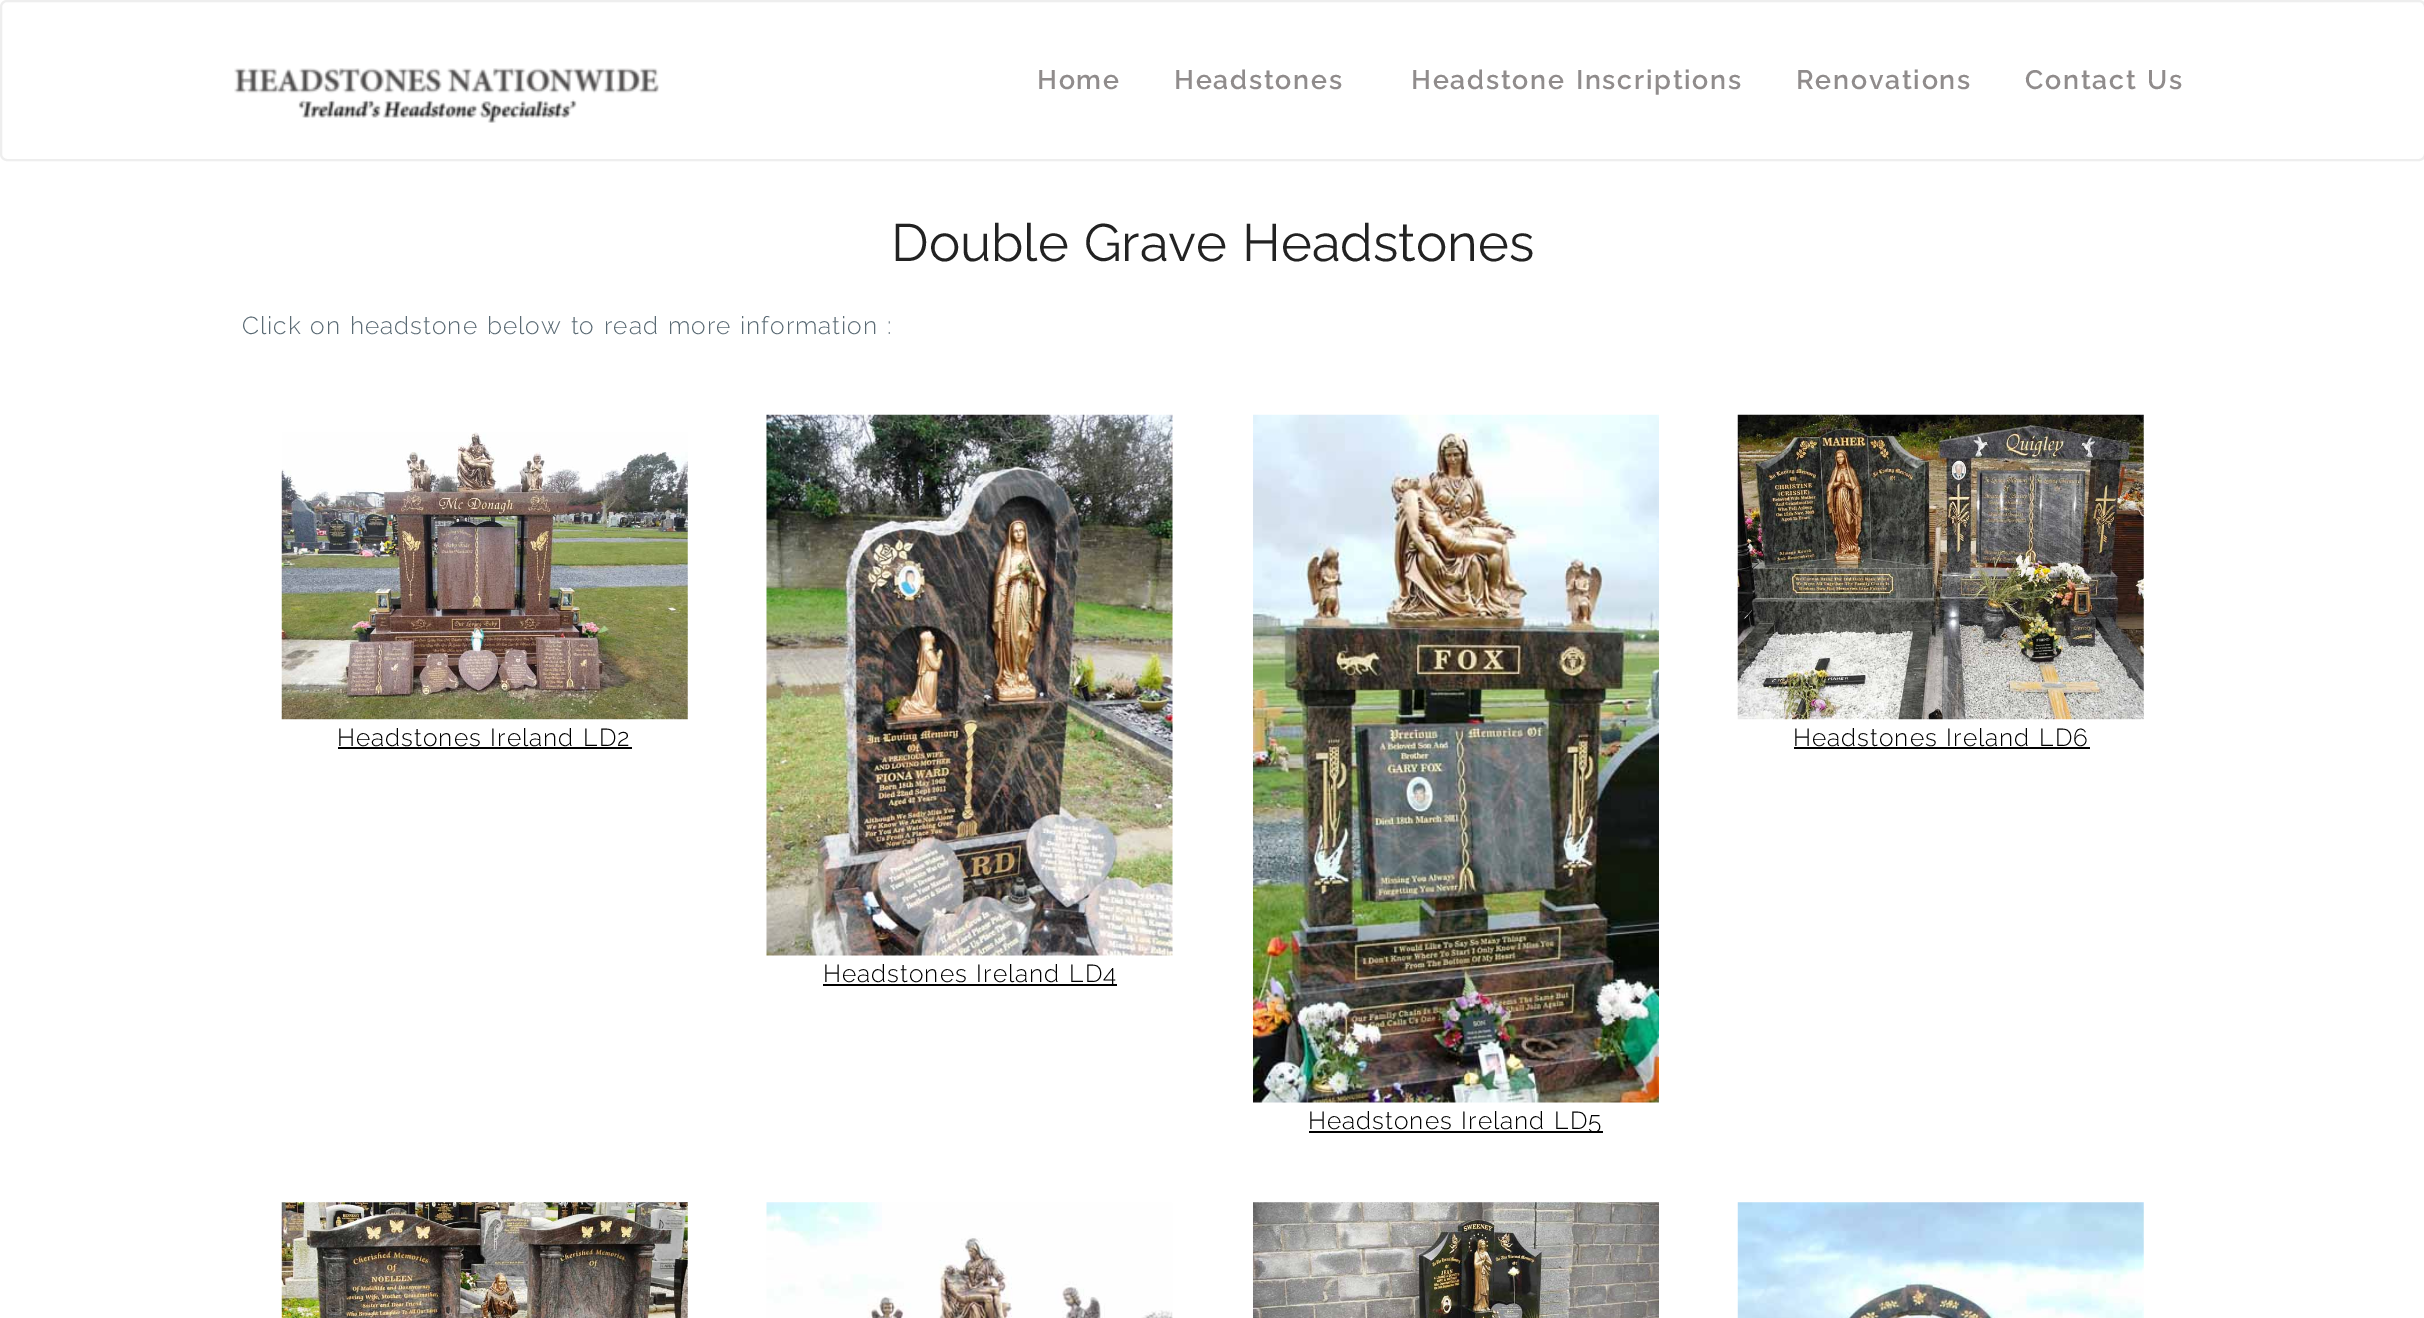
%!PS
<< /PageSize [2424 1318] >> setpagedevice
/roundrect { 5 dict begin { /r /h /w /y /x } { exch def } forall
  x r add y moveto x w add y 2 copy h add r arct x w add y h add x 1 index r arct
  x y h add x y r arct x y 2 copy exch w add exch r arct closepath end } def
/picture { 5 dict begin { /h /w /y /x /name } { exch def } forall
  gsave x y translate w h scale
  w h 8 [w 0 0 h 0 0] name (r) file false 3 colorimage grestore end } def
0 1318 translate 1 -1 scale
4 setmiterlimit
1 setgray
0 0 2424 1318 rectfill
0.933 setgray
2 setlinewidth
1 1 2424 159 6 roundrect stroke
(img1.rgb) 234 68 426 55 picture
/Raleway-SemiBold [26.75 0 0 -26.75 0 0] selectfont
0.565 0.549 0.549 setrgbcolor
1037 89 moveto 1.75 0 (Home) ashow
1174 89 moveto 1.75 0 (Headstones) ashow
1411 89 moveto 1.75 0 32 1.75 0 (Headstone Inscriptions) awidthshow
1796 89 moveto 1.75 0 (Renovations) ashow
2025 89 moveto 1.75 0 32 1.75 0 (Contact Us) awidthshow
/Raleway-Regular [52.5 0 0 -52.5 0 0] selectfont
0.133 setgray
891 261 moveto 1.75 0 32 (Double Grave Headstones) widthshow
/Raleway-Light [24.5 0 0 -24.5 0 0] selectfont
0.353 0.416 0.455 setrgbcolor
242 334 moveto 1.75 0 32 0.98 0 (Click on headstone below to read more information :) awidthshow
(img2.rgb) 281 432 407 288 picture
0 setgray
337 746 moveto 1.75 0 32 0.98 0 (Headstones Ireland LD2) awidthshow
338 747 294 2 rectfill
(img3.rgb) 1737 414 407 306 picture
1793 746 moveto 1.75 0 32 0.98 0 (Headstones Ireland LD6) awidthshow
1794 747 296 2 rectfill
(img4.rgb) 766 414 407 542 picture
823 984 294 2 rectfill
823 982 moveto 1.75 0 32 0.98 0 (Headstones Ireland LD4) awidthshow
(img5.rgb) 1253 414 406 689 picture
1309 1131 294 2 rectfill
1308 1129 moveto 1.75 0 32 0.98 0 (Headstones Ireland LD5) awidthshow
(img6.rgb) 281 1202 407 116 picture
(img7.rgb) 766 1202 407 116 picture
(img8.rgb) 1253 1202 406 116 picture
(img9.rgb) 1737 1202 407 116 picture
showpage
